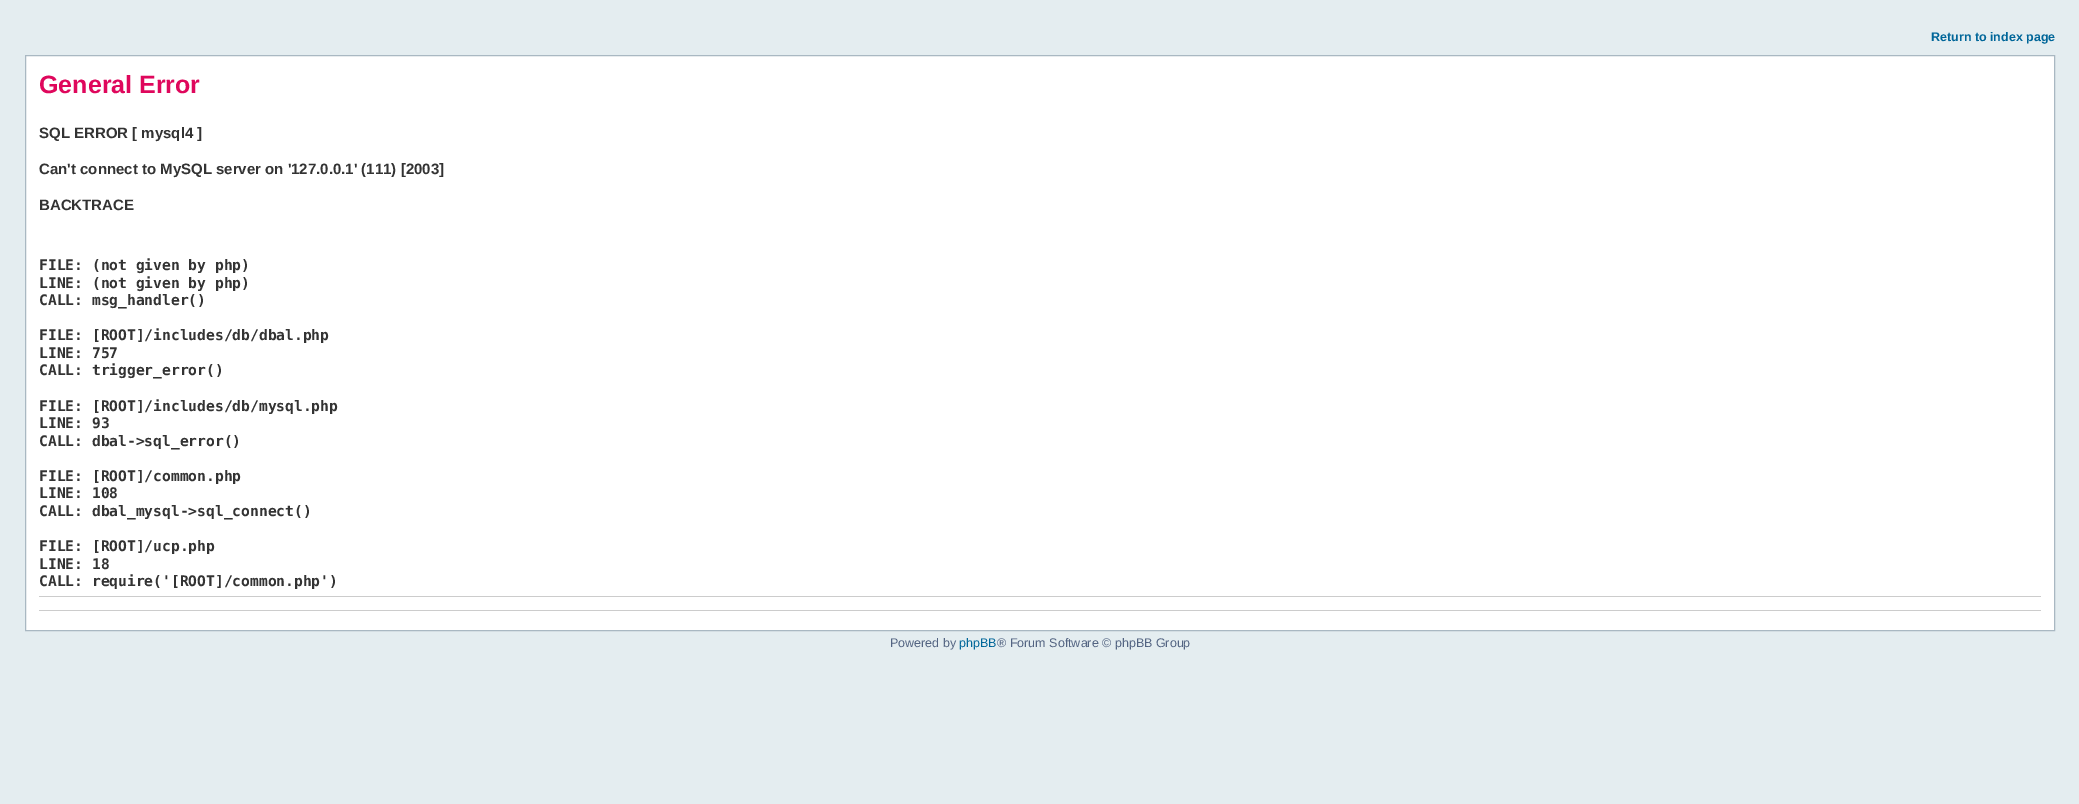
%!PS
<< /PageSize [2079 804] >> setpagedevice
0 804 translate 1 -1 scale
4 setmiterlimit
0.894 0.929 0.941 setrgbcolor
0 0 2079 804 rectfill
/LiberationSans-Bold [12.5 0 0 -12.5 0 0] selectfont
0 0.4 0.6 setrgbcolor
1931 41 moveto (Return to index page) show
1 setgray
newpath 25.5 55.5 moveto 2054.5 55.5 lineto 2054.5 630.5 lineto 25.5 630.5 lineto closepath gsave fill grestore
0.663 0.722 0.761 setrgbcolor
stroke
/LiberationSans-Bold [25 0 0 -25 0 0] selectfont
0.875 0.027 0.361 setrgbcolor
39 93 moveto (General Error) show
0.8 setgray
39 610 2002 1 rectfill
/LiberationSans-Bold [15 0 0 -15 0 0] selectfont
0.2 setgray
39 138 moveto (SQL ERROR [ mysql4 ]) show
39 174 moveto (Can't connect to MySQL server on '127.0.0.1' \(111\) [2003]) show
39 210 moveto (BACKTRACE) show
0.8 setgray
39 596 2002 1 rectfill
/DejaVuSansMono-Bold [14.6 0 0 -14.6 0 0] selectfont
0.2 setgray
39 270 moveto (FILE: \(not given by php\)) show
39 288 moveto (LINE: \(not given by php\)) show
39 305 moveto (CALL: msg_handler\(\)) show
39 340 moveto (FILE: [ROOT]/includes/db/dbal.php) show
39 358 moveto (LINE: 757) show
39 375 moveto (CALL: trigger_error\(\)) show
39 411 moveto (FILE: [ROOT]/includes/db/mysql.php) show
39 428 moveto (LINE: 93) show
39 446 moveto (CALL: dbal->sql_error\(\)) show
39 481 moveto (FILE: [ROOT]/common.php) show
39 498 moveto (LINE: 108) show
39 516 moveto (CALL: dbal_mysql->sql_connect\(\)) show
39 551 moveto (FILE: [ROOT]/ucp.php) show
39 569 moveto (LINE: 18) show
39 586 moveto (CALL: require\('[ROOT]/common.php'\)) show
/LiberationSans-Regular [12.5 0 0 -12.5 0 0] selectfont
0.325 0.392 0.51 setrgbcolor
890 647 moveto (Powered by) show
0 0.4 0.6 setrgbcolor
959 647 moveto (phpBB) show
0.325 0.392 0.51 setrgbcolor
997 647 moveto (® Forum Software © phpBB Group) show
showpage
